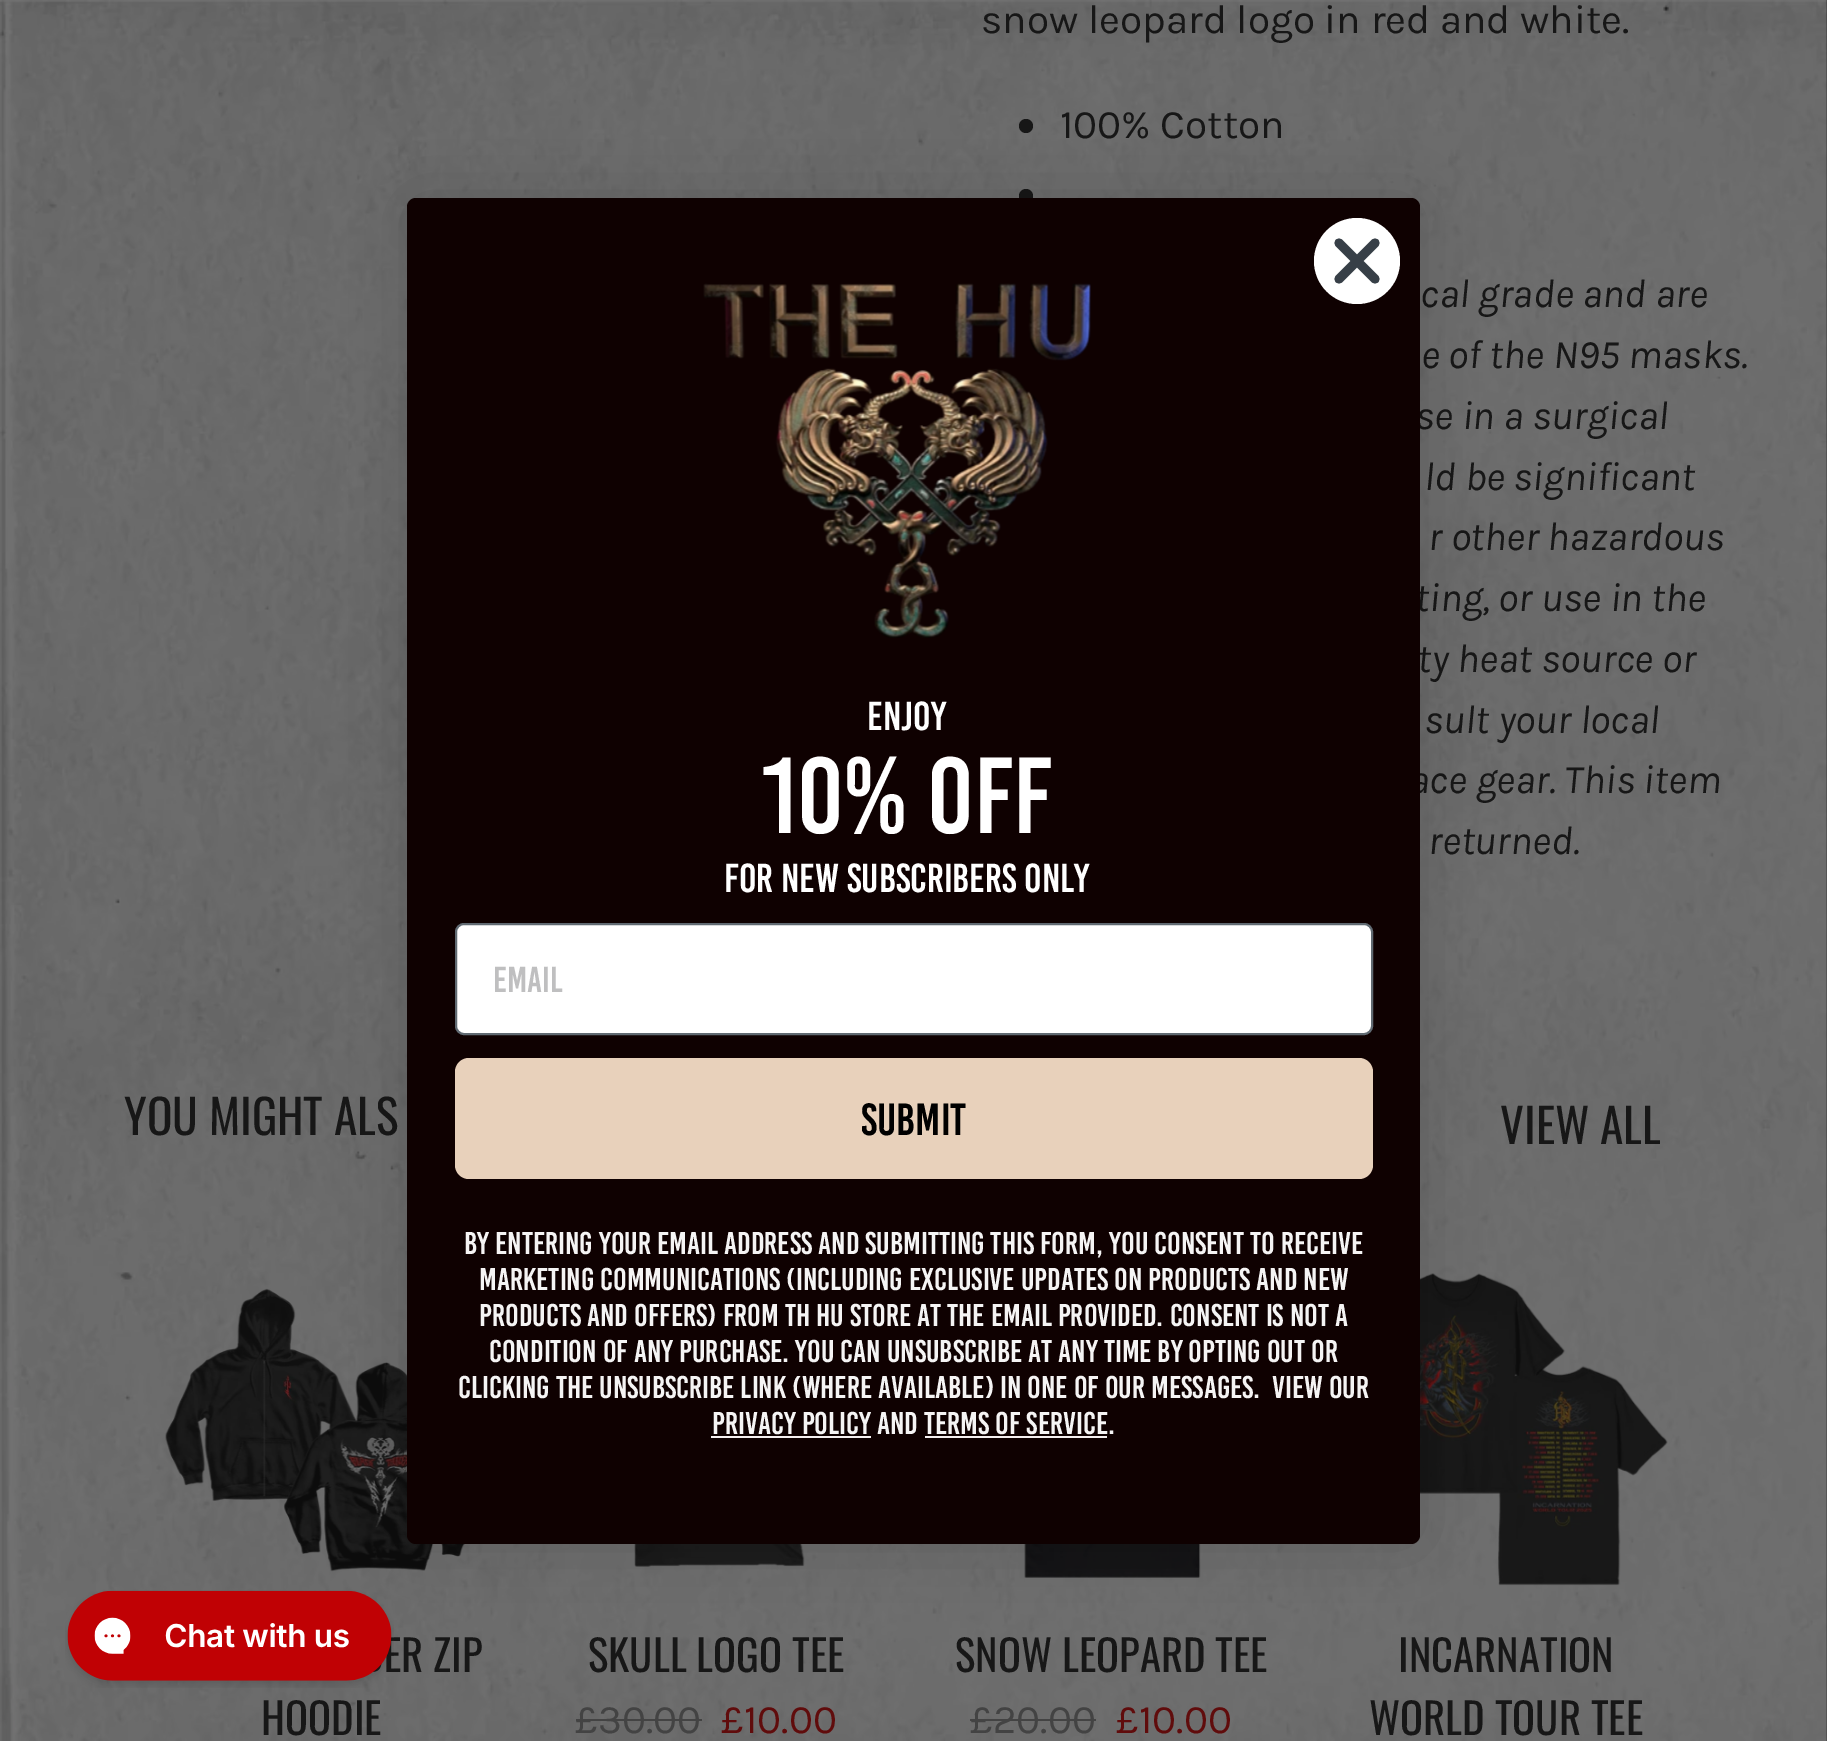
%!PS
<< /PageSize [1827 1741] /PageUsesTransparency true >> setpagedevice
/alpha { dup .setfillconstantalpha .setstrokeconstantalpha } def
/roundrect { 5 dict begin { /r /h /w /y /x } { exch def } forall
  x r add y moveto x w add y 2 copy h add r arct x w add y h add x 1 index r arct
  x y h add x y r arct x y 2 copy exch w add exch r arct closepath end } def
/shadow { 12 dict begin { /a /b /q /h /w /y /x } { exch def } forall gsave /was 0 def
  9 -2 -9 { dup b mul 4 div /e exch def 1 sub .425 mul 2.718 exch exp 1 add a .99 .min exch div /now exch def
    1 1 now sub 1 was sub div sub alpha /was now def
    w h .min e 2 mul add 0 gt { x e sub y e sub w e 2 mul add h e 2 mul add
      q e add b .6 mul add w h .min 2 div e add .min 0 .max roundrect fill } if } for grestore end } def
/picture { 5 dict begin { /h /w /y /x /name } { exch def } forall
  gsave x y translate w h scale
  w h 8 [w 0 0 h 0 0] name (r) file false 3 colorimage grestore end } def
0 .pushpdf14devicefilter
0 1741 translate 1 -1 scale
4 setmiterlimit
1 setgray
0 0 1827 1741 rectfill
(img1.rgb) 0 0 1827 1741 picture
/Karla-Regular [40.5 0 0 -40.5 0 0] selectfont
0.09 setgray
981 33 moveto (snow leopard logo in red and white.) show
newpath 1026 126 7 0 360 arc closepath fill
1060 138 moveto (100% Cotton) show
newpath 1026 196 7 0 360 arc closepath fill
/Karla-Italic [40.5 0 0 -40.5 0 0] selectfont
1420 307 moveto (cal grade and are) show
1421 368 moveto (e of the N95 masks.) show
1415 429 moveto (se in a surgical) show
1424 490 moveto (ld be significant) show
1428 550 moveto (r other hazardous) show
1415 611 moveto (ting, or use in the) show
1417 672 moveto (ty heat source or) show
1424 733 moveto (sult your local) show
1409 793 moveto (ace gear. This item) show
1428 854 moveto (returned.) show
/Oswald-Regular [47.25 0 0 -47.25 0 0] selectfont
124 1135 moveto (YOU MIGHT ALS) show
1500 1144 moveto (VIEW ALL) show
(img2.rgb) 165 1288 300 284 picture
/Oswald-Regular [42.75 0 0 -42.75 0 0] selectfont
384 1672 moveto (ER ZIP) show
261 1735 moveto (HOODIE) show
(img3.rgb) 634 1544 171 23 picture
588 1672 moveto (SKULL LOGO TEE) show
/Karla-Regular [40.5 0 0 -40.5 0 0] selectfont
0.263 setgray
575 1733 moveto (£30.00) show
576 1719 126 2 rectfill
0.376 0.047 0.047 setrgbcolor
721 1733 moveto (£10.00) show
(img4.rgb) 1024 1544 177 34 picture
/Oswald-Regular [42.75 0 0 -42.75 0 0] selectfont
0.09 setgray
955 1672 moveto (SNOW LEOPARD TEE) show
/Karla-Regular [40.5 0 0 -40.5 0 0] selectfont
0.263 setgray
970 1733 moveto (£20.00) show
970 1719 126 2 rectfill
0.376 0.047 0.047 setrgbcolor
1116 1733 moveto (£10.00) show
(img5.rgb) 1420 1273 248 313 picture
/Oswald-Regular [42.75 0 0 -42.75 0 0] selectfont
0.09 setgray
1398 1672 moveto (INCARNATION) show
1369 1735 moveto (WORLD TOUR TEE) show
0 setgray
407 198 1013 1346 9 34 0.15 shadow
0.059 0.004 0.004 setrgbcolor
407 198 1013 1346 9 roundrect fill
1 setgray
newpath 1357 261 43 0 360 arc closepath fill
0.216 0.247 0.278 setrgbcolor
9 setlinewidth
1 setlinecap
1 setlinejoin
newpath 1339 243 moveto 1375 279 lineto 1339 279 moveto 1375 243 lineto closepath stroke
(img6.rgb) 703 283 388 355 picture
/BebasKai-Regular [40.5 0 0 -40.5 0 0] selectfont
1 setgray
867 730 moveto (ENJOY) show
/BebasKai-Regular [108 0 0 -108 0 0] selectfont
761 833 moveto (10% OFF) show
/BebasKai-Regular [40.5 0 0 -40.5 0 0] selectfont
724 892 moveto (FOR NEW SUBSCRIBERS ONLY) show
456 924 916 110 8 roundrect gsave fill grestore
0.376 0.416 0.447 setrgbcolor
2 setlinewidth
0 setlinecap
0 setlinejoin
stroke
/BebasKai-Regular [36 0 0 -36 0 0] selectfont
0.749 0.749 0.753 setrgbcolor
493 992 moveto (Email) show
0.91 0.82 0.733 setrgbcolor
455 1058 918 121 14 roundrect fill
/BebasKai-Regular [45 0 0 -45 0 0] selectfont
0 setgray
861 1135 moveto (Submit) show
/BebasKai-Regular [31.5 0 0 -31.5 0 0] selectfont
0.961 0.957 0.957 setrgbcolor
464 1254 moveto (By entering your email address and submitting this form, you consent to receive) show
479 1290 moveto (marketing communications \(including exclusive updates on products and new) show
479 1326 moveto (products and offers\) from Th Hu Store at the email provided. Consent is not a) show
489 1362 moveto (condition of any purchase. You can unsubscribe at any time by opting out or) show
458 1398 moveto (clicking the unsubscribe link \(where available\) in one of our messages.) show
1272 1398 moveto (View our) show
712 1434 moveto (Privacy Policy and Terms of Service.) show
0.961 0.941 0.941 setrgbcolor
711 1436 160 2 rectfill
925 1436 182 2 rectfill
(img7.rgb) 65 1590 329 98 picture
.poppdf14devicefilter showpage
